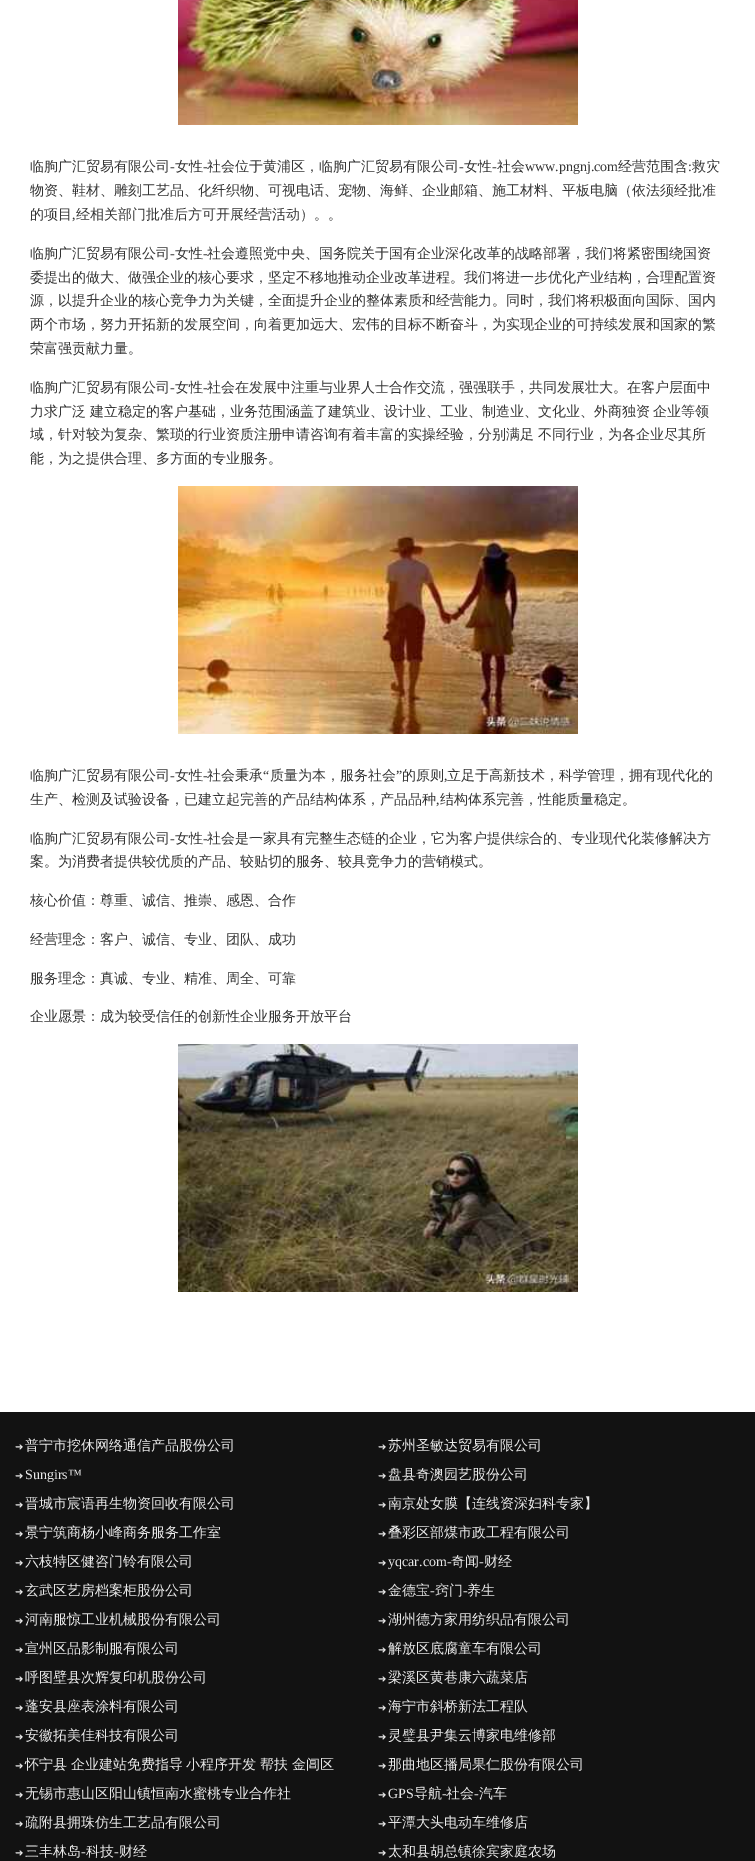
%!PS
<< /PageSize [755 1861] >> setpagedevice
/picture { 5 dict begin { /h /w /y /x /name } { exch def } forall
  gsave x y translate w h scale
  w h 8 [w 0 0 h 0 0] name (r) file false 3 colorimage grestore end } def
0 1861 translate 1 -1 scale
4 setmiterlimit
1 setgray
0 0 755 1861 rectfill
(img1.rgb) 178 0 400 125 picture
/WenQuanYiZenHei-Medium [14 0 0 -14 0 0] selectfont
0.204 setgray
30 171 moveto (临朐广汇贸易有限公司) show
/LiberationSerif-Regular [14 0 0 -14 0 0] selectfont
170 171 moveto (-) show
/WenQuanYiZenHei-Medium [14 0 0 -14 0 0] selectfont
175 171 moveto (女性) show
/LiberationSerif-Regular [14 0 0 -14 0 0] selectfont
203 171 moveto (-) show
/WenQuanYiZenHei-Medium [14 0 0 -14 0 0] selectfont
207 171 moveto (社会位于黄浦区，临朐广汇贸易有限公司) show
/LiberationSerif-Regular [14 0 0 -14 0 0] selectfont
459 171 moveto (-) show
/WenQuanYiZenHei-Medium [14 0 0 -14 0 0] selectfont
464 171 moveto (女性) show
/LiberationSerif-Regular [14 0 0 -14 0 0] selectfont
492 171 moveto (-) show
/WenQuanYiZenHei-Medium [14 0 0 -14 0 0] selectfont
497 171 moveto (社会) show
/LiberationSerif-Regular [14 0 0 -14 0 0] selectfont
525 171 moveto (www.pngnj.com) show
/WenQuanYiZenHei-Medium [14 0 0 -14 0 0] selectfont
618 171 moveto (经营范围含) show
/LiberationSerif-Regular [14 0 0 -14 0 0] selectfont
688 171 moveto (:) show
/WenQuanYiZenHei-Medium [14 0 0 -14 0 0] selectfont
692 171 moveto (救灾) show
30 195 moveto (物资、鞋材、雕刻工艺品、化纤织物、可视电话、宠物、海鲜、企业邮箱、施工材料、平板电脑（依法须经批准) show
30 219 moveto (的项目) show
/LiberationSerif-Regular [14 0 0 -14 0 0] selectfont
72 219 moveto (,) show
/WenQuanYiZenHei-Medium [14 0 0 -14 0 0] selectfont
76 219 moveto (经相关部门批准后方可开展经营活动）。。) show
30 258 moveto (临朐广汇贸易有限公司) show
/LiberationSerif-Regular [14 0 0 -14 0 0] selectfont
170 258 moveto (-) show
/WenQuanYiZenHei-Medium [14 0 0 -14 0 0] selectfont
175 258 moveto (女性) show
/LiberationSerif-Regular [14 0 0 -14 0 0] selectfont
203 258 moveto (-) show
/WenQuanYiZenHei-Medium [14 0 0 -14 0 0] selectfont
207 258 moveto (社会遵照党中央、国务院关于国有企业深化改革的战略部署，我们将紧密围绕国资) show
30 282 moveto (委提出的做大、做强企业的核心要求，坚定不移地推动企业改革进程。我们将进一步优化产业结构，合理配置资) show
30 305 moveto (源，以提升企业的核心竞争力为关键，全面提升企业的整体素质和经营能力。同时，我们将积极面向国际、国内) show
30 329 moveto (两个市场，努力开拓新的发展空间，向着更加远大、宏伟的目标不断奋斗，为实现企业的可持续发展和国家的繁) show
30 353 moveto (荣富强贡献力量。) show
30 392 moveto (临朐广汇贸易有限公司) show
/LiberationSerif-Regular [14 0 0 -14 0 0] selectfont
170 392 moveto (-) show
/WenQuanYiZenHei-Medium [14 0 0 -14 0 0] selectfont
175 392 moveto (女性) show
/LiberationSerif-Regular [14 0 0 -14 0 0] selectfont
203 392 moveto (-) show
/WenQuanYiZenHei-Medium [14 0 0 -14 0 0] selectfont
207 392 moveto (社会在发展中注重与业界人士合作交流，强强联手，共同发展壮大。在客户层面中) show
30 416 moveto -0.5 0 32 (力求广泛 建立稳定的客户基础，业务范围涵盖了建筑业、设计业、工业、制造业、文化业、外商独资 企业等领) widthshow
30 439 moveto -0.5 0 32 (域，针对较为复杂、繁琐的行业资质注册申请咨询有着丰富的实操经验，分别满足 不同行业，为各企业尽其所) widthshow
30 463 moveto (能，为之提供合理、多方面的专业服务。) show
(img2.rgb) 178 486 400 248 picture
30 780 moveto (临朐广汇贸易有限公司) show
/LiberationSerif-Regular [14 0 0 -14 0 0] selectfont
170 780 moveto (-) show
/WenQuanYiZenHei-Medium [14 0 0 -14 0 0] selectfont
175 780 moveto (女性) show
207 780 moveto (社会秉承) show
/LiberationSerif-Regular [14 0 0 -14 0 0] selectfont
263 780 moveto (“) show
/WenQuanYiZenHei-Medium [14 0 0 -14 0 0] selectfont
270 780 moveto (质量为本，服务社会) show
/LiberationSerif-Regular [14 0 0 -14 0 0] selectfont
396 780 moveto (”) show
/WenQuanYiZenHei-Medium [14 0 0 -14 0 0] selectfont
402 780 moveto (的原则) show
447 780 moveto (立足于高新技术，科学管理，拥有现代化的) show
/LiberationSerif-Regular [14 0 0 -14 0 0] selectfont
203 780 moveto (-) show
444 780 moveto (,) show
/WenQuanYiZenHei-Medium [14 0 0 -14 0 0] selectfont
30 804 moveto (生产、检测及试验设备，已建立起完善的产品结构体系，产品品种) show
/LiberationSerif-Regular [14 0 0 -14 0 0] selectfont
436 804 moveto (,) show
/WenQuanYiZenHei-Medium [14 0 0 -14 0 0] selectfont
440 804 moveto (结构体系完善，性能质量稳定。) show
30 843 moveto (临朐广汇贸易有限公司) show
/LiberationSerif-Regular [14 0 0 -14 0 0] selectfont
170 843 moveto (-) show
/WenQuanYiZenHei-Medium [14 0 0 -14 0 0] selectfont
175 843 moveto (女性) show
/LiberationSerif-Regular [14 0 0 -14 0 0] selectfont
203 843 moveto (-) show
/WenQuanYiZenHei-Medium [14 0 0 -14 0 0] selectfont
207 843 moveto (社会是一家具有完整生态链的企业，它为客户提供综合的、专业现代化装修解决方) show
30 866 moveto (案。为消费者提供较优质的产品、较贴切的服务、较具竞争力的营销模式。) show
30 905 moveto (核心价值：尊重、诚信、推崇、感恩、合作) show
30 944 moveto (经营理念：客户、诚信、专业、团队、成功) show
30 983 moveto (服务理念：真诚、专业、精准、周全、可靠) show
30 1021 moveto (企业愿景：成为较受信任的创新性企业服务开放平台) show
(img3.rgb) 178 1044 400 248 picture
0.071 setgray
0 1412 755 449 rectfill
/DejaVuSans-Regular [10 0 0 -10 0 0] selectfont
0.914 setgray
15 1450 moveto (➜) show
/WenQuanYiZenHei-Medium [14 0 0 -14 0 0] selectfont
25 1450 moveto (普宁市挖休网络通信产品股份公司) show
/DejaVuSans-Regular [10 0 0 -10 0 0] selectfont
378 1450 moveto (➜) show
/WenQuanYiZenHei-Medium [14 0 0 -14 0 0] selectfont
388 1450 moveto (苏州圣敏达贸易有限公司) show
/DejaVuSans-Regular [10 0 0 -10 0 0] selectfont
15 1479 moveto (➜) show
/LiberationSerif-Regular [14 0 0 -14 0 0] selectfont
25 1479 moveto (Sungirs™) show
/DejaVuSans-Regular [10 0 0 -10 0 0] selectfont
378 1479 moveto (➜) show
/WenQuanYiZenHei-Medium [14 0 0 -14 0 0] selectfont
388 1479 moveto (盘县奇澳园艺股份公司) show
/DejaVuSans-Regular [10 0 0 -10 0 0] selectfont
15 1508 moveto (➜) show
/WenQuanYiZenHei-Medium [14 0 0 -14 0 0] selectfont
25 1508 moveto (晋城市宸语再生物资回收有限公司) show
/DejaVuSans-Regular [10 0 0 -10 0 0] selectfont
378 1508 moveto (➜) show
/WenQuanYiZenHei-Medium [14 0 0 -14 0 0] selectfont
388 1508 moveto (南京处女膜【连线资深妇科专家】) show
/DejaVuSans-Regular [10 0 0 -10 0 0] selectfont
15 1537 moveto (➜) show
/WenQuanYiZenHei-Medium [14 0 0 -14 0 0] selectfont
25 1537 moveto (景宁筑商杨小峰商务服务工作室) show
/DejaVuSans-Regular [10 0 0 -10 0 0] selectfont
378 1537 moveto (➜) show
/WenQuanYiZenHei-Medium [14 0 0 -14 0 0] selectfont
388 1537 moveto (叠彩区部煤市政工程有限公司) show
/DejaVuSans-Regular [10 0 0 -10 0 0] selectfont
15 1566 moveto (➜) show
/WenQuanYiZenHei-Medium [14 0 0 -14 0 0] selectfont
25 1566 moveto (六枝特区健咨门铃有限公司) show
/DejaVuSans-Regular [10 0 0 -10 0 0] selectfont
378 1566 moveto (➜) show
/LiberationSerif-Regular [14 0 0 -14 0 0] selectfont
388 1566 moveto (yqcar.com-) show
/WenQuanYiZenHei-Medium [14 0 0 -14 0 0] selectfont
451 1566 moveto (奇闻) show
/LiberationSerif-Regular [14 0 0 -14 0 0] selectfont
479 1566 moveto (-) show
/WenQuanYiZenHei-Medium [14 0 0 -14 0 0] selectfont
484 1566 moveto (财经) show
/DejaVuSans-Regular [10 0 0 -10 0 0] selectfont
15 1595 moveto (➜) show
/WenQuanYiZenHei-Medium [14 0 0 -14 0 0] selectfont
25 1595 moveto (玄武区艺房档案柜股份公司) show
/DejaVuSans-Regular [10 0 0 -10 0 0] selectfont
378 1595 moveto (➜) show
/WenQuanYiZenHei-Medium [14 0 0 -14 0 0] selectfont
388 1595 moveto (金德宝) show
/LiberationSerif-Regular [14 0 0 -14 0 0] selectfont
430 1595 moveto (-) show
/WenQuanYiZenHei-Medium [14 0 0 -14 0 0] selectfont
435 1595 moveto (窍门) show
/LiberationSerif-Regular [14 0 0 -14 0 0] selectfont
463 1595 moveto (-) show
/WenQuanYiZenHei-Medium [14 0 0 -14 0 0] selectfont
467 1595 moveto (养生) show
/DejaVuSans-Regular [10 0 0 -10 0 0] selectfont
15 1624 moveto (➜) show
/WenQuanYiZenHei-Medium [14 0 0 -14 0 0] selectfont
25 1624 moveto (河南服惊工业机械股份有限公司) show
/DejaVuSans-Regular [10 0 0 -10 0 0] selectfont
378 1624 moveto (➜) show
/WenQuanYiZenHei-Medium [14 0 0 -14 0 0] selectfont
388 1624 moveto (湖州德方家用纺织品有限公司) show
/DejaVuSans-Regular [10 0 0 -10 0 0] selectfont
15 1653 moveto (➜) show
/WenQuanYiZenHei-Medium [14 0 0 -14 0 0] selectfont
25 1653 moveto (宣州区品影制服有限公司) show
/DejaVuSans-Regular [10 0 0 -10 0 0] selectfont
378 1653 moveto (➜) show
/WenQuanYiZenHei-Medium [14 0 0 -14 0 0] selectfont
388 1653 moveto (解放区底腐童车有限公司) show
/DejaVuSans-Regular [10 0 0 -10 0 0] selectfont
15 1682 moveto (➜) show
/WenQuanYiZenHei-Medium [14 0 0 -14 0 0] selectfont
25 1682 moveto (呼图壁县次辉复印机股份公司) show
/DejaVuSans-Regular [10 0 0 -10 0 0] selectfont
378 1682 moveto (➜) show
/WenQuanYiZenHei-Medium [14 0 0 -14 0 0] selectfont
388 1682 moveto (梁溪区黄巷康六蔬菜店) show
/DejaVuSans-Regular [10 0 0 -10 0 0] selectfont
15 1711 moveto (➜) show
/WenQuanYiZenHei-Medium [14 0 0 -14 0 0] selectfont
25 1711 moveto (蓬安县座表涂料有限公司) show
/DejaVuSans-Regular [10 0 0 -10 0 0] selectfont
378 1711 moveto (➜) show
/WenQuanYiZenHei-Medium [14 0 0 -14 0 0] selectfont
388 1711 moveto (海宁市斜桥新法工程队) show
/DejaVuSans-Regular [10 0 0 -10 0 0] selectfont
15 1740 moveto (➜) show
/WenQuanYiZenHei-Medium [14 0 0 -14 0 0] selectfont
25 1740 moveto (安徽拓美佳科技有限公司) show
/DejaVuSans-Regular [10 0 0 -10 0 0] selectfont
378 1740 moveto (➜) show
/WenQuanYiZenHei-Medium [14 0 0 -14 0 0] selectfont
388 1740 moveto (灵璧县尹集云博家电维修部) show
/DejaVuSans-Regular [10 0 0 -10 0 0] selectfont
15 1769 moveto (➜) show
/WenQuanYiZenHei-Medium [14 0 0 -14 0 0] selectfont
25 1769 moveto -0.5 0 32 (怀宁县 企业建站免费指导 小程序开发 帮扶 金阊区) widthshow
/DejaVuSans-Regular [10 0 0 -10 0 0] selectfont
378 1769 moveto (➜) show
/WenQuanYiZenHei-Medium [14 0 0 -14 0 0] selectfont
388 1769 moveto (那曲地区播局果仁股份有限公司) show
/DejaVuSans-Regular [10 0 0 -10 0 0] selectfont
15 1798 moveto (➜) show
/WenQuanYiZenHei-Medium [14 0 0 -14 0 0] selectfont
25 1798 moveto (无锡市惠山区阳山镇恒南水蜜桃专业合作社) show
/DejaVuSans-Regular [10 0 0 -10 0 0] selectfont
378 1798 moveto (➜) show
/LiberationSerif-Regular [14 0 0 -14 0 0] selectfont
388 1798 moveto (GPS) show
/WenQuanYiZenHei-Medium [14 0 0 -14 0 0] selectfont
414 1798 moveto (导航) show
/LiberationSerif-Regular [14 0 0 -14 0 0] selectfont
442 1798 moveto (-) show
/WenQuanYiZenHei-Medium [14 0 0 -14 0 0] selectfont
446 1798 moveto (社会) show
/LiberationSerif-Regular [14 0 0 -14 0 0] selectfont
474 1798 moveto (-) show
/WenQuanYiZenHei-Medium [14 0 0 -14 0 0] selectfont
479 1798 moveto (汽车) show
/DejaVuSans-Regular [10 0 0 -10 0 0] selectfont
15 1827 moveto (➜) show
/WenQuanYiZenHei-Medium [14 0 0 -14 0 0] selectfont
25 1827 moveto (疏附县拥珠仿生工艺品有限公司) show
/DejaVuSans-Regular [10 0 0 -10 0 0] selectfont
378 1827 moveto (➜) show
/WenQuanYiZenHei-Medium [14 0 0 -14 0 0] selectfont
388 1827 moveto (平潭大头电动车维修店) show
/DejaVuSans-Regular [10 0 0 -10 0 0] selectfont
15 1856 moveto (➜) show
/WenQuanYiZenHei-Medium [14 0 0 -14 0 0] selectfont
25 1856 moveto (三丰林岛) show
/LiberationSerif-Regular [14 0 0 -14 0 0] selectfont
81 1856 moveto (-) show
/WenQuanYiZenHei-Medium [14 0 0 -14 0 0] selectfont
86 1856 moveto (科技) show
/LiberationSerif-Regular [14 0 0 -14 0 0] selectfont
114 1856 moveto (-) show
/WenQuanYiZenHei-Medium [14 0 0 -14 0 0] selectfont
119 1856 moveto (财经) show
/DejaVuSans-Regular [10 0 0 -10 0 0] selectfont
378 1856 moveto (➜) show
/WenQuanYiZenHei-Medium [14 0 0 -14 0 0] selectfont
388 1856 moveto (太和县胡总镇徐宾家庭农场) show
showpage
